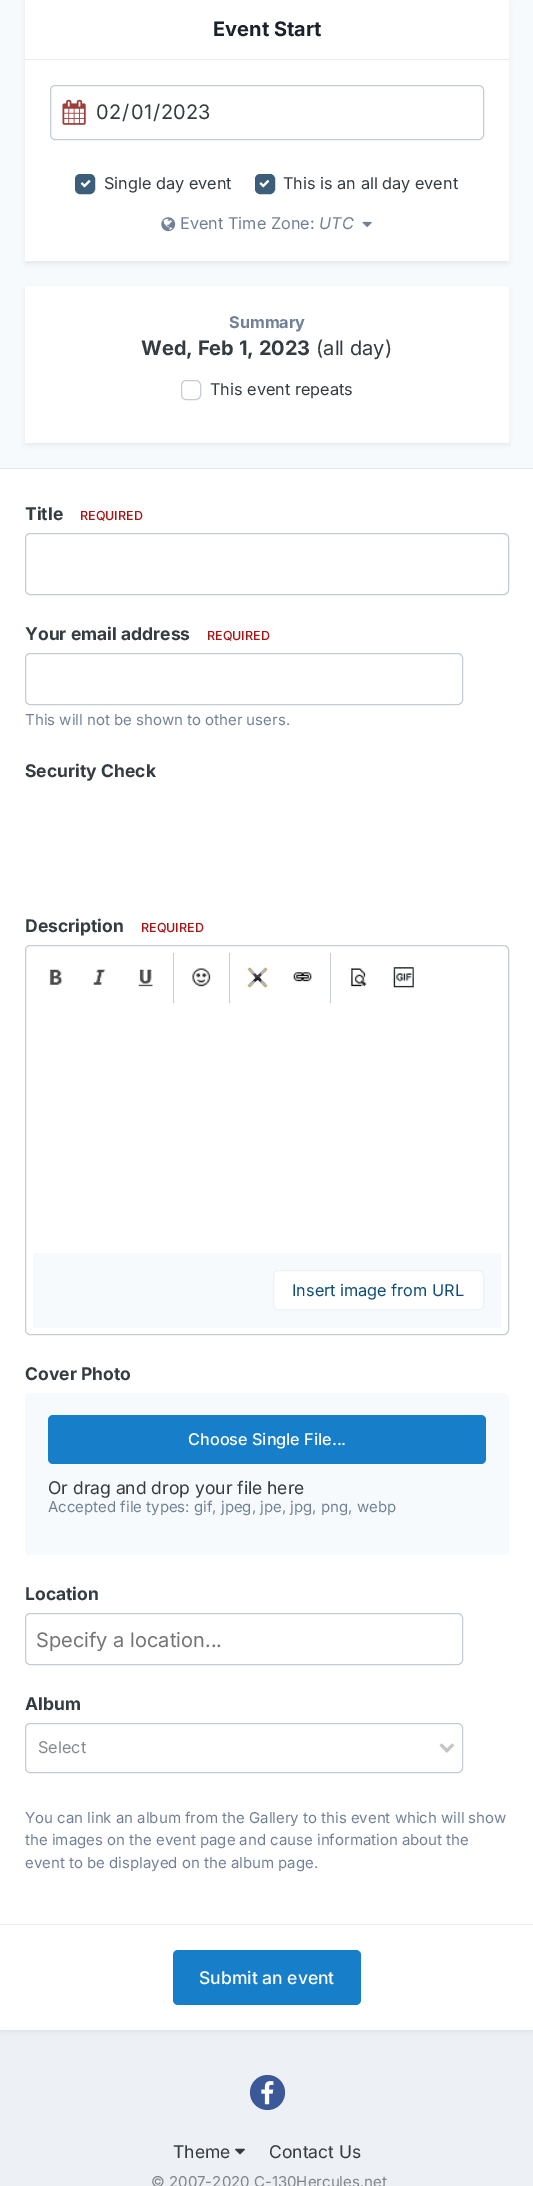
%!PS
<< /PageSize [533 2186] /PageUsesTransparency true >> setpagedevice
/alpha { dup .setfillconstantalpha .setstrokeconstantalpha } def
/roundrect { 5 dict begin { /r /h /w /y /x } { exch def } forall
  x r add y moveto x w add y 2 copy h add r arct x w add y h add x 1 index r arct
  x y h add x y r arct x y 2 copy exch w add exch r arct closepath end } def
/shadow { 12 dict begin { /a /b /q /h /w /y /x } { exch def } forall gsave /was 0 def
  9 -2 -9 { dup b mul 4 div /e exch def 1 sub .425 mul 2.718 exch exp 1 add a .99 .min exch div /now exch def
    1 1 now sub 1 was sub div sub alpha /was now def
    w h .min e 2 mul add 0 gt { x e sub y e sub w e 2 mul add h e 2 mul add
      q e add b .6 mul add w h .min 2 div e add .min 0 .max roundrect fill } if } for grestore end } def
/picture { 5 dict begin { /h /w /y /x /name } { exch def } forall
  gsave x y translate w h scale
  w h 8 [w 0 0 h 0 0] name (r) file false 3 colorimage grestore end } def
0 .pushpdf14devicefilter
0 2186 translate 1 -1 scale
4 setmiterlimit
0.929 0.941 0.957 setrgbcolor
0 0 533 2186 rectfill
0.176 0.216 0.282 setrgbcolor
1 -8 532 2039 0 2.5 0.1 shadow
1 setgray
0 469 533 1561 rectfill
0.969 0.98 0.988 setrgbcolor
0 0 533 468 rectfill
0.89 0.91 0.929 setrgbcolor
0 468 533 1 rectfill
0.176 0.216 0.282 setrgbcolor
26 3 482 260 0 2.5 0.1 shadow
1 setgray
25 0 484 261 rectfill
0.918 0.925 0.937 setrgbcolor
25 59 484 1 rectfill
/Inter-Bold [20 0 0 -20 0 0] selectfont
0.102 0.125 0.173 setrgbcolor
213 36 moveto (Event Start) show
0.776 0.8 0.835 setrgbcolor
50.5 85.5 433 54 4.5 roundrect stroke
(img1.rgb) 62 99 24 26 picture
/Inter-Regular [20 0 0 -20 0 0] selectfont
0.208 0.235 0.255 setrgbcolor
96 119 moveto (02) show
122 119 moveto (/) show
131 119 moveto (01) show
153 119 moveto (/) show
161 119 moveto (2023) show
0.239 0.369 0.471 setrgbcolor
75.5 174.5 19 19 4.5 roundrect gsave fill grestore
stroke
(img2.rgb) 80 180 11 8 picture
/Inter-Regular [16.25 0 0 -16.25 0 0] selectfont
0.208 0.235 0.255 setrgbcolor
104 189 moveto (Single day event) show
0.239 0.369 0.471 setrgbcolor
255.5 174.5 19 19 4.5 roundrect gsave fill grestore
stroke
(img3.rgb) 259 180 11 8 picture
0.208 0.235 0.255 setrgbcolor
283 189 moveto (This is an all day event) show
(img4.rgb) 161 217 15 15 picture
0.443 0.502 0.588 setrgbcolor
180 229 moveto (Event Time Zone:) show
/Inter-Italic [16.25 0 0 -16.25 0 0] selectfont
319 229 moveto (UTC) show
(img5.rgb) 362 221 10 6 picture
0.176 0.216 0.282 setrgbcolor
26 290 482 154 0 2.5 0.1 shadow
1 setgray
25 286 484 157 rectfill
/Inter-Bold [16.25 0 0 -16.25 0 0] selectfont
0.443 0.502 0.588 setrgbcolor
229 328 moveto (Summary) show
/Inter-Bold [20 0 0 -20 0 0] selectfont
0.208 0.235 0.255 setrgbcolor
141 355 moveto (Wed, Feb 1, 2023) show
/Inter-Regular [20 0 0 -20 0 0] selectfont
316 355 moveto (\(all day\)) show
0.776 0.8 0.835 setrgbcolor
181.5 380.5 19 19 4.5 roundrect stroke
/Inter-Regular [16.25 0 0 -16.25 0 0] selectfont
0.208 0.235 0.255 setrgbcolor
210 395 moveto (This event repeats) show
/Inter-Bold [17.5 0 0 -17.5 0 0] selectfont
25 520 moveto (Title) show
/Inter-Medium [12.5 0 0 -12.5 0 0] selectfont
0.667 0.078 0.078 setrgbcolor
80 520 moveto (REQUIRED) show
0.776 0.8 0.835 setrgbcolor
25.5 533.5 483 61 4.5 roundrect stroke
/Inter-Bold [17.5 0 0 -17.5 0 0] selectfont
0.208 0.235 0.255 setrgbcolor
25 640 moveto (Your email address) show
/Inter-Medium [12.5 0 0 -12.5 0 0] selectfont
0.667 0.078 0.078 setrgbcolor
207 640 moveto (REQUIRED) show
0.776 0.8 0.835 setrgbcolor
25.5 653.5 437 51 4.5 roundrect stroke
/Inter-Regular [15 0 0 -15 0 0] selectfont
0.443 0.502 0.588 setrgbcolor
25 725 moveto (This will not be shown to other users.) show
/Inter-Bold [17.5 0 0 -17.5 0 0] selectfont
0.208 0.235 0.255 setrgbcolor
25 777 moveto (Security Check) show
25 932 moveto (Description) show
/Inter-Medium [12.5 0 0 -12.5 0 0] selectfont
0.667 0.078 0.078 setrgbcolor
141 932 moveto (REQUIRED) show
0.776 0.8 0.835 setrgbcolor
25.5 945.5 483 389 4.5 roundrect stroke
(img6.rgb) 49 969 14 16 picture
(img7.rgb) 93 969 13 16 picture
(img8.rgb) 138 969 15 18 picture
173 953 1 50 rectfill
(img9.rgb) 192 968 19 19 picture
229 953 1 50 rectfill
(img10.rgb) 247 967 21 21 picture
(img11.rgb) 293 972 19 10 picture
330 953 1 50 rectfill
(img12.rgb) 351 968 16 19 picture
(img13.rgb) 393 967 21 21 picture
0.969 0.98 0.988 setrgbcolor
33 1253 468 75 rectfill
1 setgray
273 1270 211 40 5 roundrect fill
0.07 alpha
0.055 0.298 0.475 setrgbcolor
273.5 1270.5 210 39 4.5 roundrect stroke
/Inter-Regular [16.25 0 0 -16.25 0 0] selectfont
1 alpha
292 1296 moveto (Insert image from URL) show
/Inter-Bold [17.5 0 0 -17.5 0 0] selectfont
0.208 0.235 0.255 setrgbcolor
25 1380 moveto (Cover Photo) show
0.969 0.98 0.988 setrgbcolor
25 1393 484 162 5 roundrect fill
0.09 0.494 0.788 setrgbcolor
48 1415 438 49 5 roundrect fill
/Inter-Medium [16.25 0 0 -16.25 0 0] selectfont
1 setgray
188 1445 moveto (Choose Single File...) show
/Inter-Regular [17.5 0 0 -17.5 0 0] selectfont
0.208 0.235 0.255 setrgbcolor
48 1494 moveto (Or drag and drop your file here) show
/Inter-Regular [15 0 0 -15 0 0] selectfont
0.443 0.502 0.588 setrgbcolor
48 1512 moveto (Accepted file types: gif, jpeg, jpe, jpg, png, webp) show
/Inter-Bold [17.5 0 0 -17.5 0 0] selectfont
0.208 0.235 0.255 setrgbcolor
25 1600 moveto (Location) show
0.776 0.8 0.835 setrgbcolor
25.5 1613.5 437 51 4.5 roundrect stroke
gsave
36 1626 415 25 rectclip
/Inter-Regular [20 0 0 -20 0 0] selectfont
0.459 setgray
36 1647 moveto (Specify a location...) show
grestore
0.208 0.235 0.255 setrgbcolor
25 1710 moveto (Album) show
0.776 0.8 0.835 setrgbcolor
25.5 1723.5 437 49 4.5 roundrect stroke
/Inter-Regular [16.25 0 0 -16.25 0 0] selectfont
0.525 0.541 0.553 setrgbcolor
38 1753 moveto (Select) show
(img14.rgb) 439 1743 16 10 picture
/Inter-Regular [15 0 0 -15 0 0] selectfont
0.443 0.502 0.588 setrgbcolor
25 1823 moveto (You can link an album from the Gallery to this event which will show) show
25 1845 moveto (the images on the event page and cause information about the) show
25 1868 moveto (event to be displayed on the album page.) show
0.918 0.925 0.937 setrgbcolor
0 1924 533 1 rectfill
0.09 0.494 0.788 setrgbcolor
173 1950 188 55 5 roundrect fill
/Inter-Medium [17.5 0 0 -17.5 0 0] selectfont
1 setgray
199 1984 moveto (Submit an event) show
0.231 0.349 0.596 setrgbcolor
newpath 267.5 2092.5 17.5 0 360 arc closepath fill
(img15.rgb) 261 2081 13 24 picture
/Inter-Regular [17.5 0 0 -17.5 0 0] selectfont
0.208 0.235 0.255 setrgbcolor
173 2158 moveto (Theme) show
(img16.rgb) 235 2148 10 7 picture
269 2158 moveto (Contact Us) show
/Inter-Regular [15 0 0 -15 0 0] selectfont
0.498 0.518 0.537 setrgbcolor
151 2187 moveto (© 2007-2020 C-130Hercules.net) show
.poppdf14devicefilter showpage
